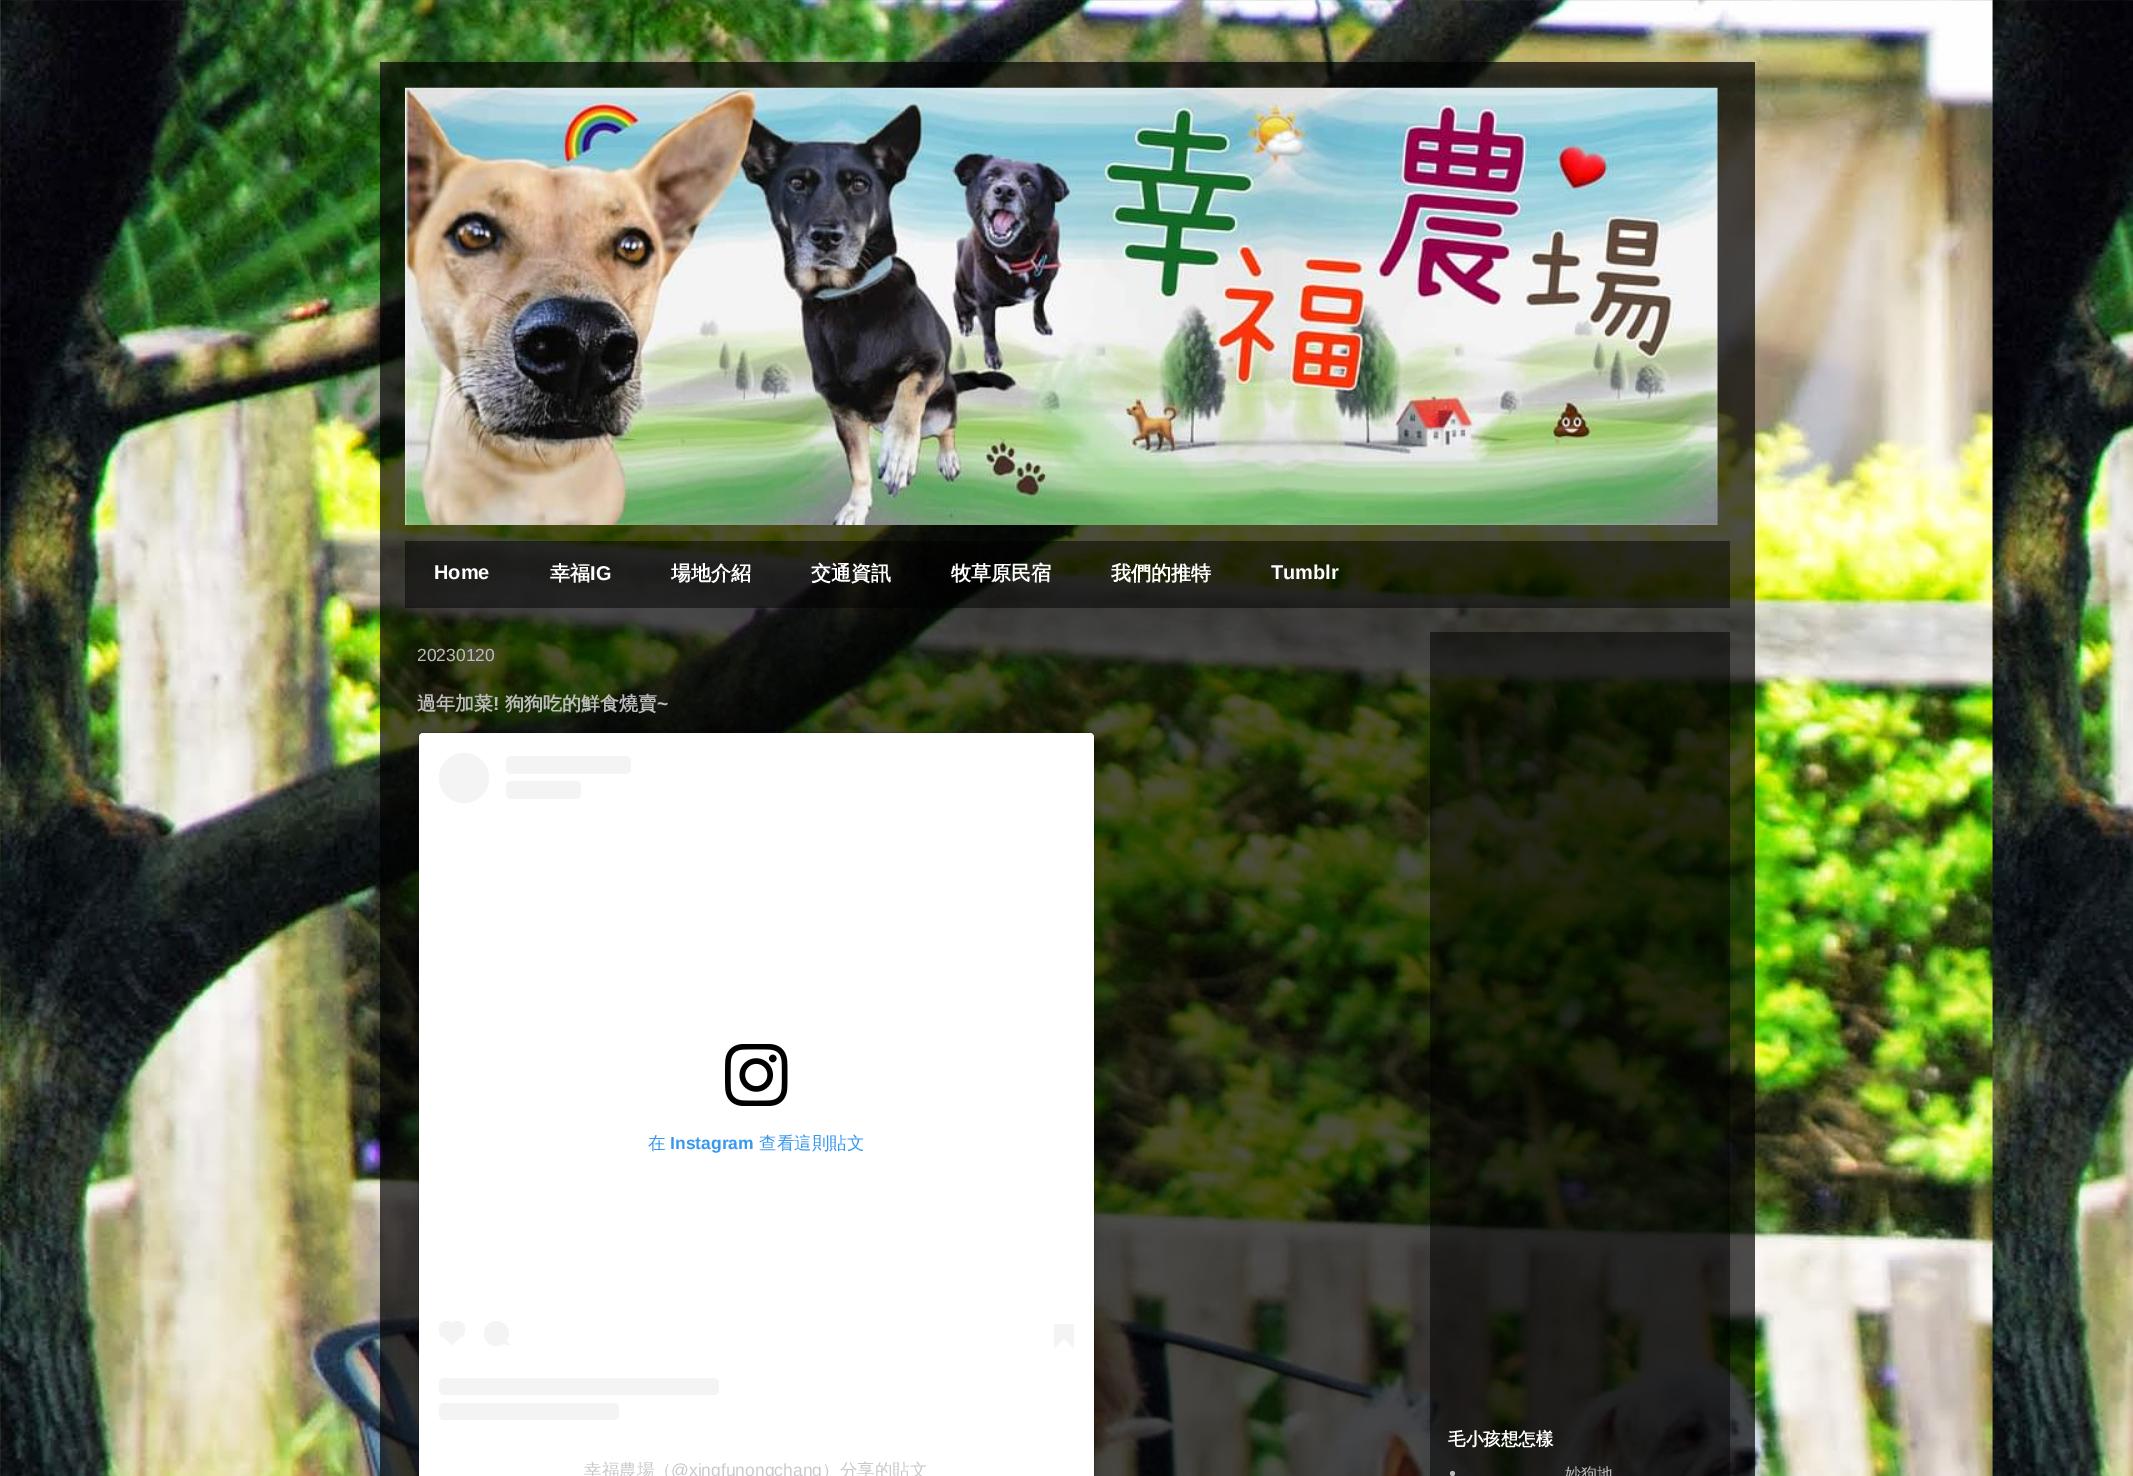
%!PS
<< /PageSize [2133 1476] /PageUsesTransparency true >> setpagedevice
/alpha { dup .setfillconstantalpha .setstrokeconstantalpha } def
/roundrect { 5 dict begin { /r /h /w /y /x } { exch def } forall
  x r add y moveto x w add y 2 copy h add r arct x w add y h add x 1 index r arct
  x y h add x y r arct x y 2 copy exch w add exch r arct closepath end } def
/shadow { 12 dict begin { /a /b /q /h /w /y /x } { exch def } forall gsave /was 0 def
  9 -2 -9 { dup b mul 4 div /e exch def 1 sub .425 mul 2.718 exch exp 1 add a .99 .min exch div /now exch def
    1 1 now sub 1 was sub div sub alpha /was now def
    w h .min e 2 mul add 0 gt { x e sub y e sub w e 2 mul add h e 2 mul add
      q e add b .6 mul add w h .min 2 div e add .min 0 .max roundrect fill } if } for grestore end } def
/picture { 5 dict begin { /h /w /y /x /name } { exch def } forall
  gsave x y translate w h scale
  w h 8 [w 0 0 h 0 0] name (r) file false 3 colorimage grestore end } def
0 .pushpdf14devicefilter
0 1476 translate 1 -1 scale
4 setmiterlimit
1 setgray
0 0 2133 1476 rectfill
(img1.rgb) 0 0 2133 1476 picture
0.7 alpha
0 setgray
380 62 1375 1414 rectfill
1 alpha
(img2.rgb) 405 87 1313 438 picture
0.5 alpha
405 541 1325 67 rectfill
/LiberationSans-Bold [20 0 0 -20 0 0] selectfont
1 alpha
1 setgray
434 579 moveto (Home) show
/WenQuanYiZenHei-Bold [20 0 0 -20 0 0] selectfont
550 580 moveto (幸福) show
/LiberationSans-Bold [20 0 0 -20 0 0] selectfont
590 580 moveto (IG) show
/WenQuanYiZenHei-Bold [20 0 0 -20 0 0] selectfont
671 580 moveto (場地介紹) show
811 580 moveto (交通資訊) show
951 580 moveto (牧草原民宿) show
1111 580 moveto (我們的推特) show
/LiberationSans-Bold [20 0 0 -20 0 0] selectfont
1271 579 moveto (Tumblr) show
0.5 alpha
0 setgray
1430 632 300 844 rectfill
/LiberationSans-Regular [17.5 0 0 -17.5 0 0] selectfont
1 alpha
0.733 setgray
417 661 moveto (20230120) show
/WenQuanYiZenHei-Bold [19 0 0 -19 0 0] selectfont
417 710 moveto (過年加菜) show
/LiberationSans-Bold [19 0 0 -19 0 0] selectfont
493 710 moveto (!) show
/WenQuanYiZenHei-Bold [19 0 0 -19 0 0] selectfont
505 710 moveto (狗狗吃的鮮食燒賣) show
/LiberationSans-Bold [19 0 0 -19 0 0] selectfont
657 710 moveto (~) show
0 setgray
419 734 675 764 4 6 0.15 shadow
419 733 675 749 4 0.5 0.5 shadow
1 setgray
419 733 675 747 4 roundrect fill
0.957 setgray
newpath 464 778 25 0 360 arc closepath fill
506 756 125 18 5 roundrect fill
506 781 75 18 5 roundrect fill
(img3.rgb) 725 1044 63 62 picture
/WenQuanYiZenHei-Medium [17.5 0 0 -17.5 0 0] selectfont
0.22 0.592 0.941 setrgbcolor
648 1149 moveto (在) show
/LiberationSans-Bold [17.5 0 0 -17.5 0 0] selectfont
670 1149 moveto (Instagram) show
/WenQuanYiZenHei-Medium [17.5 0 0 -17.5 0 0] selectfont
759 1149 moveto (查看這則貼文) show
0.957 setgray
439 1321 15 17 7.5 roundrect fill
newpath 441 1334.5 moveto 452 1323.5 lineto 463 1334.5 lineto 452 1345.5 lineto closepath fill
450 1321 15 17 7.5 roundrect fill
newpath 496.5 1333.5 12.5 0 360 arc closepath fill
newpath 503 1344 moveto 505.5 1340 lineto 510.5 1345.5 lineto closepath fill
1054 1324 20 15 rectfill
newpath 1054 1339 moveto 1064 1339 lineto 1054 1349 lineto closepath fill
newpath 1064 1339 moveto 1074 1339 lineto 1074 1349 lineto closepath fill
439 1378 280 17 5 roundrect fill
439 1403 180 17 5 roundrect fill
0.788 0.784 0.804 setrgbcolor
584 1476 moveto (幸福農場（) show
/LiberationSans-Regular [17.5 0 0 -17.5 0 0] selectfont
671 1476 moveto (@xingfunongchang) show
/WenQuanYiZenHei-Medium [17.5 0 0 -17.5 0 0] selectfont
822 1476 moveto (）分享的貼文) show
/WenQuanYiZenHei-Bold [17.5 0 0 -17.5 0 0] selectfont
1 setgray
1448 1445 moveto (毛小孩想怎樣) show
0.733 setgray
newpath 1452.5 1473.5 2.5 0 360 arc closepath fill
/WenQuanYiZenHei-Medium [16 0 0 -16 0 0] selectfont
1565 1479 moveto (妙狗地) show
.poppdf14devicefilter showpage
